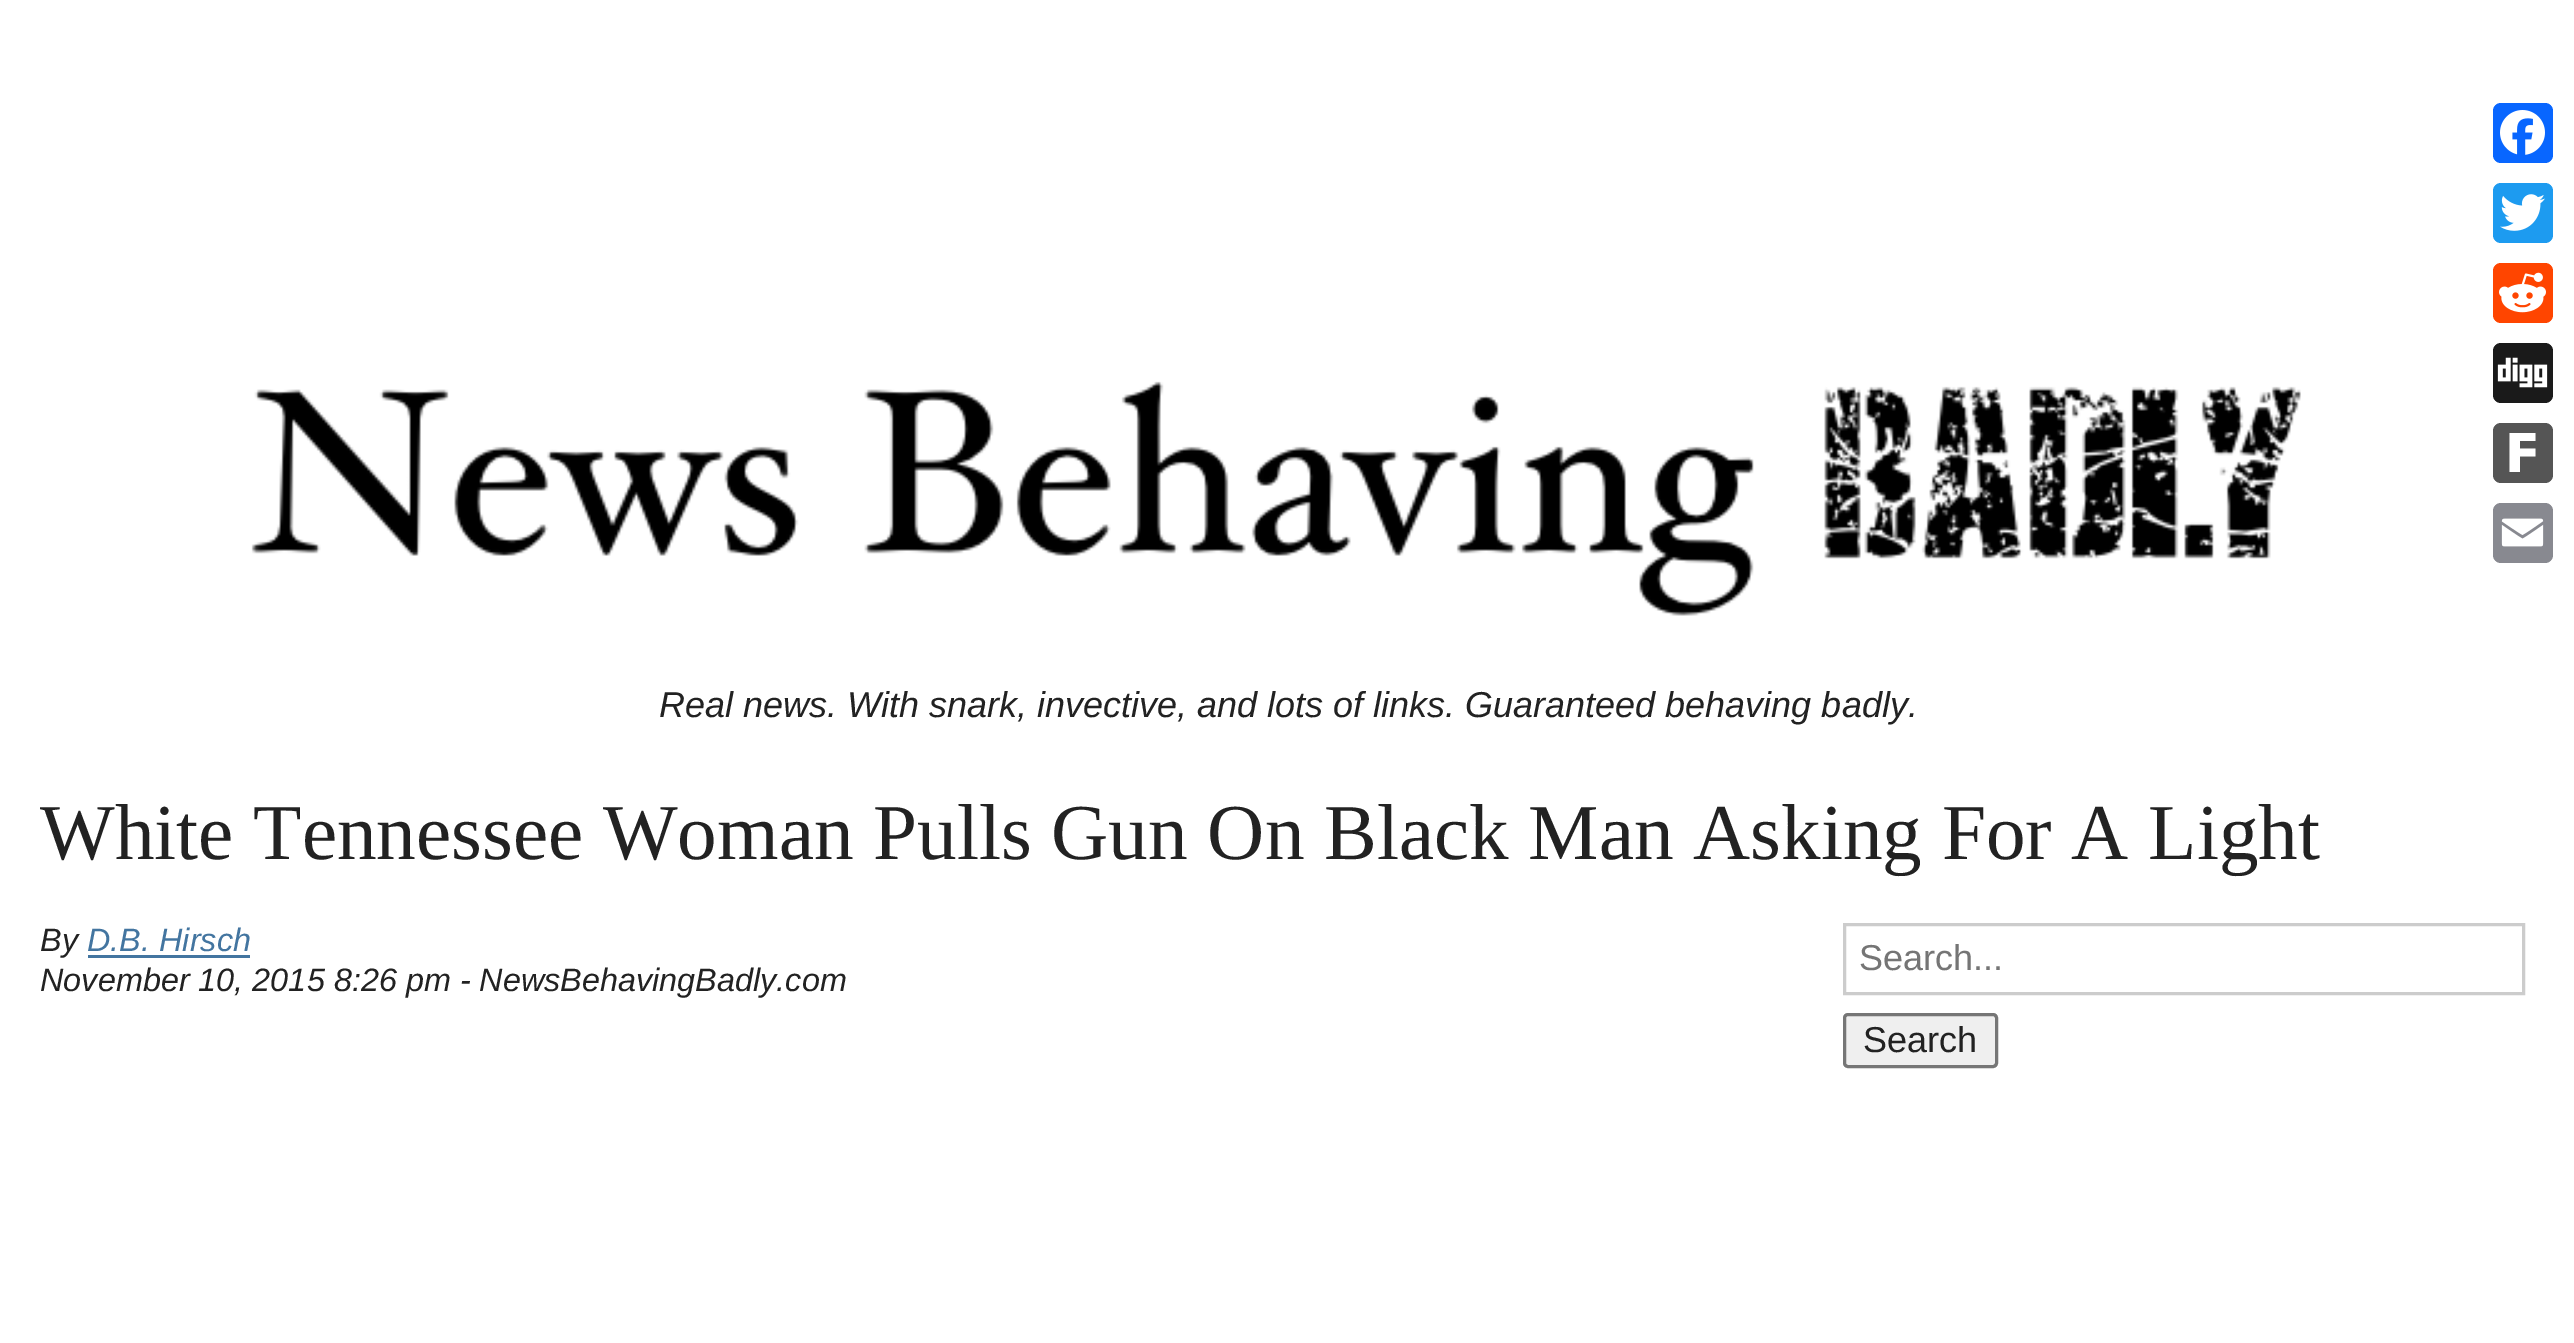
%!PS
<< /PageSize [2574 1343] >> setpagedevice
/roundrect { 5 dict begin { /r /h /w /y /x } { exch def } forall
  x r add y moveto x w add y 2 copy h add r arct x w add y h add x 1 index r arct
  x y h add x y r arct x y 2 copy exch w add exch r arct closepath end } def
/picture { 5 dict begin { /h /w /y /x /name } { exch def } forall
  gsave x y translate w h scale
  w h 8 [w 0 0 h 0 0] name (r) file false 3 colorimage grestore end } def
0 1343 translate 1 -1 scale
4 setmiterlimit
1 setgray
0 0 2574 1343 rectfill
0.031 0.4 1 setrgbcolor
2493 103 60 60 8 roundrect fill
(img1.rgb) 2500 110 45 45 picture
0.114 0.608 0.941 setrgbcolor
2493 183 60 60 8 roundrect fill
(img2.rgb) 2500 194 45 37 picture
1 0.271 0 setrgbcolor
2493 263 60 60 8 roundrect fill
(img3.rgb) 2499 272 47 41 picture
0.102 setgray
2493 343 60 60 8 roundrect fill
(img4.rgb) 2497 357 51 31 picture
0.333 setgray
2493 423 60 60 8 roundrect fill
1 setgray
newpath 2535.5 441 moveto 2535.5 433 lineto 2509.5 433 lineto 2509.5 472 lineto 2520 472 lineto 2520 456.5 lineto 2535.5 456.5 lineto 2535.5 448.5 lineto 2520 448.5 lineto 2520 441 lineto fill
0.533 0.537 0.565 setrgbcolor
2493 503 60 60 8 roundrect fill
(img5.rgb) 2501 518 43 29 picture
(img6.rgb) 251 381 2050 235 picture
/LiberationSans-Italic [36 0 0 -36 0 0] selectfont
0.133 setgray
659 717 moveto (Real news. With snark, invective, and lots of links. Guaranteed behaving badly.) show
/LiberationSerif-Regular [79.2 0 0 -79.2 0 0] selectfont
40 859 moveto -0.1 0 32 (White Tennessee Woman Pulls Gun On Black Man Asking For A Light) widthshow
/LiberationSans-Italic [32.4 0 0 -32.4 0 0] selectfont
40 951 moveto (By) show
0.263 0.459 0.627 setrgbcolor
87 951 moveto (D.B. Hirsch) show
88 955 162 3 rectfill
0.133 setgray
40 991 moveto (November 10, 2015 8:26 pm - NewsBehavingBadly.com) show
0.8 setgray
3 setlinewidth
1844.5 924.5 679 69 rectstroke
/LiberationSans-Regular [36 0 0 -36 0 0] selectfont
0.459 setgray
1859 970 moveto (Search...) show
0.937 setgray
1844.5 1014.5 152 52 3.5 roundrect gsave fill grestore
0.463 setgray
stroke
0.133 setgray
1863 1052 moveto (Search) show
showpage
